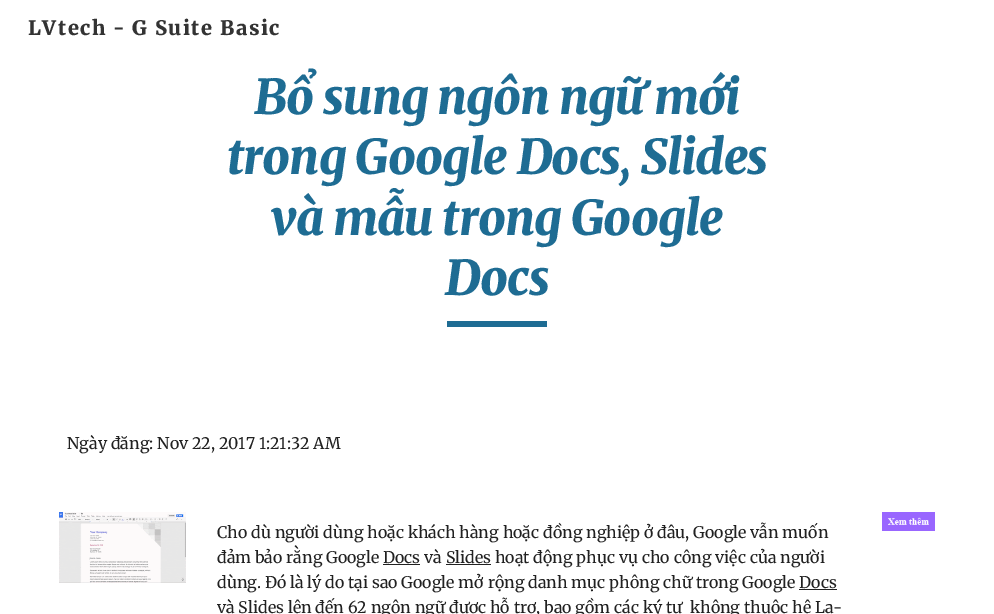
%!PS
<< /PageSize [994 614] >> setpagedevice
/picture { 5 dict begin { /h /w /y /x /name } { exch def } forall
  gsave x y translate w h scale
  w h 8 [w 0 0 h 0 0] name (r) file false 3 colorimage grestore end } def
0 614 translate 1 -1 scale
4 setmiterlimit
1 setgray
0 0 994 614 rectfill
/Merriweather-Black [20 0 0 -20 0 0] selectfont
0.2 setgray
28 35 moveto 1.5 0 (LVtech - G Suite Basic) ashow
/Merriweather-BlackItalic [48 0 0 -48 0 0] selectfont
0.118 0.424 0.576 setrgbcolor
254 114 moveto -0.9 0 (Bổ sung ngôn ngữ mới) ashow
227 174 moveto -0.9 0 (trong Google Docs, Slides) ashow
271 235 moveto -0.9 0 (và mẫu trong Google) ashow
445 295 moveto -0.9 0 (Docs) ashow
447 321 100 6 rectfill
/Merriweather-Regular [16 0 0 -16 0 0] selectfont
0.129 setgray
67 449 moveto (Ngày đăng: Nov 22, 2017 1:21:32 AM) show
(img1.rgb) 59 512 127 71 picture
217 538 moveto (Cho dù người dùng hoặc khách hàng hoặc đồng nghiệp ở đâu, Google vẫn muốn) show
217 563 moveto (đảm bảo rằng Google Docs và Slides hoạt động phục vụ cho công việc của người) show
383 564 37 1 rectfill
446 564 45 1 rectfill
217 588 moveto (dùng. Đó là lý do tại sao Google mở rộng danh mục phông chữ trong Google Docs) show
799 589 38 1 rectfill
217 613 moveto (và Slides lên đến 62 ngôn ngữ được hỗ trợ, bao gồm các ký tự  không thuộc hệ La-) show
(img2.rgb) 882 512 53 19 picture
showpage
